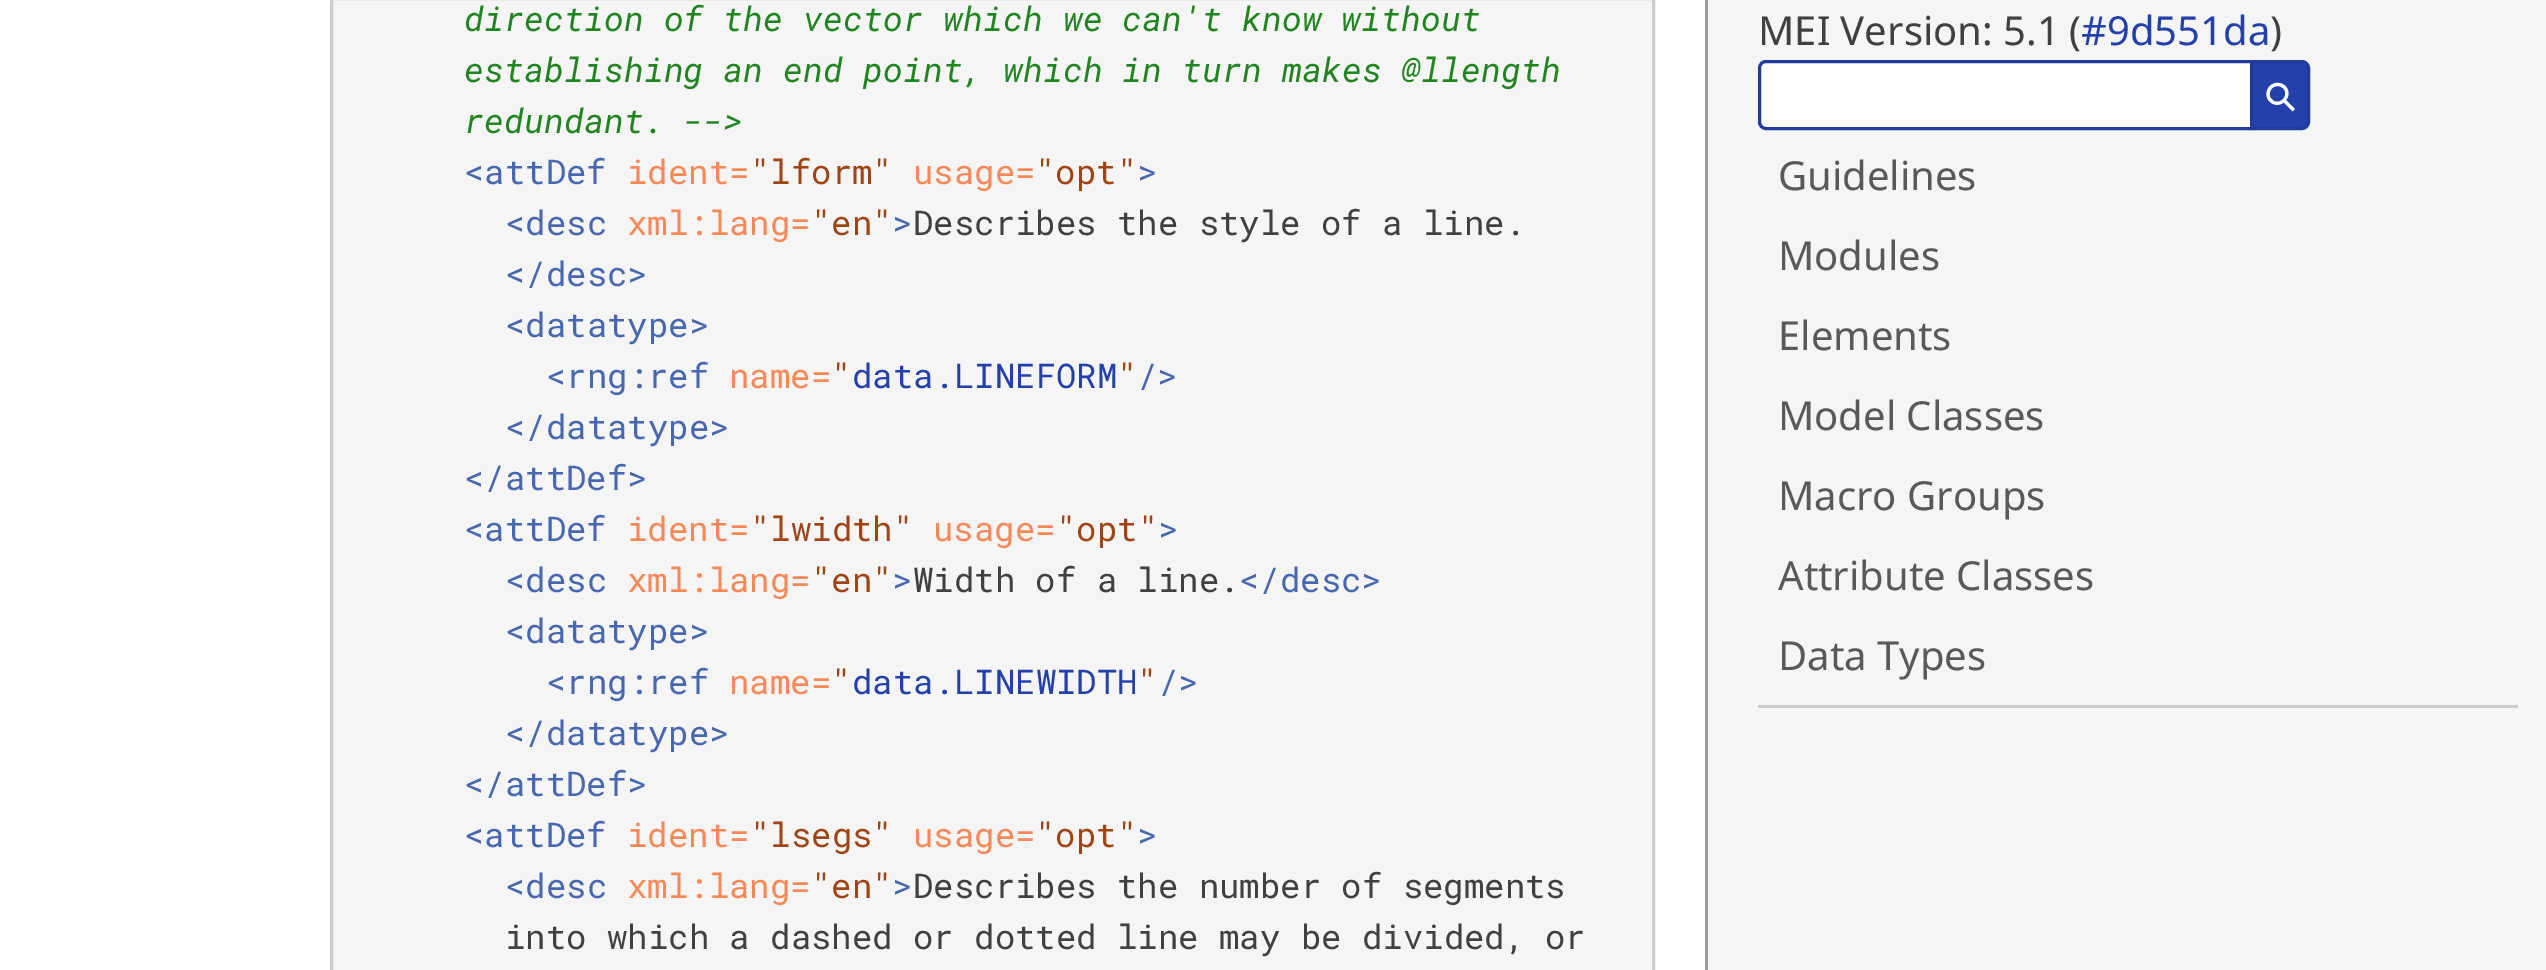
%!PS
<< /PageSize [2546 970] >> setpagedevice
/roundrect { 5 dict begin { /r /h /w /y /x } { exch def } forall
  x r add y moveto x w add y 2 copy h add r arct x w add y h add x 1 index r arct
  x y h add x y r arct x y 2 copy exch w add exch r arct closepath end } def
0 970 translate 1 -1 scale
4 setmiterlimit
1 setgray
0 0 2546 970 rectfill
0.961 setgray
newpath 331.5 -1.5 moveto 1653.5 -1.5 lineto 1653.5 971.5 lineto 331.5 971.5 lineto closepath gsave fill grestore
0.8 setgray
3 setlinewidth
stroke
/RobotoMono-Italic [34 0 0 -34 0 0] selectfont
0.125 0.518 0.125 setrgbcolor
464 31 moveto (direction of the vector which we) show
1122 31 moveto (can't know without) show
464 82 moveto (establishing an end point, which in turn makes) show
1401 82 moveto (@llength) show
464 133 moveto (redundant. -->) show
/RobotoMono-Regular [34 0 0 -34 0 0] selectfont
0.278 0.404 0.694 setrgbcolor
464 184 moveto (<attDef) show
0.976 0.533 0.349 setrgbcolor
627 184 moveto (ident=) show
0.631 0.267 0.082 setrgbcolor
750 184 moveto ("lform") show
0.976 0.533 0.349 setrgbcolor
913 184 moveto (usage=) show
0.631 0.267 0.082 setrgbcolor
1035 184 moveto ("opt") show
0.278 0.404 0.694 setrgbcolor
1137 184 moveto (>) show
505 235 moveto (<desc) show
0.976 0.533 0.349 setrgbcolor
627 235 moveto (xml:lang=) show
0.631 0.267 0.082 setrgbcolor
811 235 moveto ("en") show
0.278 0.404 0.694 setrgbcolor
892 235 moveto (>) show
0.251 setgray
913 235 moveto (Describes the style of a line.) show
0.278 0.404 0.694 setrgbcolor
505 286 moveto (</desc>) show
505 337 moveto (<datatype>) show
546 388 moveto (<rng:ref) show
0.976 0.533 0.349 setrgbcolor
729 388 moveto (name=) show
0.631 0.267 0.082 setrgbcolor
831 388 moveto (") show
0.141 0.251 0.667 setrgbcolor
852 388 moveto (data.LINEFORM) show
0.631 0.267 0.082 setrgbcolor
1117 388 moveto (") show
0.278 0.404 0.694 setrgbcolor
1137 388 moveto (/>) show
505 439 moveto (</datatype>) show
464 490 moveto (</attDef>) show
464 541 moveto (<attDef) show
0.976 0.533 0.349 setrgbcolor
627 541 moveto (ident=) show
0.631 0.267 0.082 setrgbcolor
750 541 moveto ("lwidth") show
0.976 0.533 0.349 setrgbcolor
933 541 moveto (usage=) show
0.631 0.267 0.082 setrgbcolor
1056 541 moveto ("opt") show
0.278 0.404 0.694 setrgbcolor
1158 541 moveto (>) show
505 592 moveto (<desc) show
0.976 0.533 0.349 setrgbcolor
627 592 moveto (xml:lang=) show
0.631 0.267 0.082 setrgbcolor
811 592 moveto ("en") show
0.278 0.404 0.694 setrgbcolor
892 592 moveto (>) show
0.251 setgray
913 592 moveto (Width of a line.) show
0.278 0.404 0.694 setrgbcolor
1239 592 moveto (</desc>) show
505 643 moveto (<datatype>) show
546 694 moveto (<rng:ref) show
0.976 0.533 0.349 setrgbcolor
729 694 moveto (name=) show
0.631 0.267 0.082 setrgbcolor
831 694 moveto (") show
0.141 0.251 0.667 setrgbcolor
852 694 moveto (data.LINEWIDTH) show
0.631 0.267 0.082 setrgbcolor
1137 694 moveto (") show
0.278 0.404 0.694 setrgbcolor
1158 694 moveto (/>) show
505 745 moveto (</datatype>) show
464 796 moveto (</attDef>) show
464 847 moveto (<attDef) show
0.976 0.533 0.349 setrgbcolor
627 847 moveto (ident=) show
0.631 0.267 0.082 setrgbcolor
750 847 moveto ("lsegs") show
0.976 0.533 0.349 setrgbcolor
913 847 moveto (usage=) show
0.631 0.267 0.082 setrgbcolor
1035 847 moveto ("opt") show
0.278 0.404 0.694 setrgbcolor
1137 847 moveto (>) show
505 898 moveto (<desc) show
0.976 0.533 0.349 setrgbcolor
627 898 moveto (xml:lang=) show
0.631 0.267 0.082 setrgbcolor
811 898 moveto ("en") show
0.278 0.404 0.694 setrgbcolor
892 898 moveto (>) show
0.251 setgray
913 898 moveto (Describes the number of segments) show
505 949 moveto (into which a dashed or dotted line may be divided,) show
1545 949 moveto (or) show
0.961 setgray
1708 0 838 970 rectfill
0.6 setgray
1705 0 3 970 rectfill
/NotoSans-Regular [40 0 0 -40 0 0] selectfont
0.251 setgray
1758 45 moveto (MEI Version: 5.1) show
2069 45 moveto (\() show
0.141 0.251 0.667 setrgbcolor
2081 45 moveto (#9d551da) show
0.251 setgray
2270 45 moveto (\)) show
1 setgray
1759.5 61.5 497 67 6.5 roundrect gsave fill grestore
0.129 0.231 0.616 setrgbcolor
stroke
0.141 0.251 0.667 setrgbcolor
newpath 2251.5 61.5 moveto 2302 61.5 lineto 2305.5 61.5 2308.5 64.5 2308.5 68 curveto 2308.5 122 lineto 2308.5 125.5 2305.5 128.5 2302 128.5 curveto 2251.5 128.5 lineto closepath gsave fill grestore
0.129 0.231 0.616 setrgbcolor
stroke
/DejaVuSans-Regular [40 0 0 -40 0 0] selectfont
1 setgray
gsave 2280 117 translate -45 rotate 0 0 moveto (⚲) show grestore
/NotoSans-Regular [40 0 0 -40 0 0] selectfont
0.349 setgray
1778 190 moveto (Guidelines) show
1778 270 moveto (Modules) show
1778 350 moveto (Elements) show
1778 430 moveto (Model Classes) show
1778 510 moveto (Macro Groups) show
1778 590 moveto (Attribute Classes) show
1778 670 moveto (Data Types) show
0.8 setgray
1758 705 760 3 rectfill
showpage
